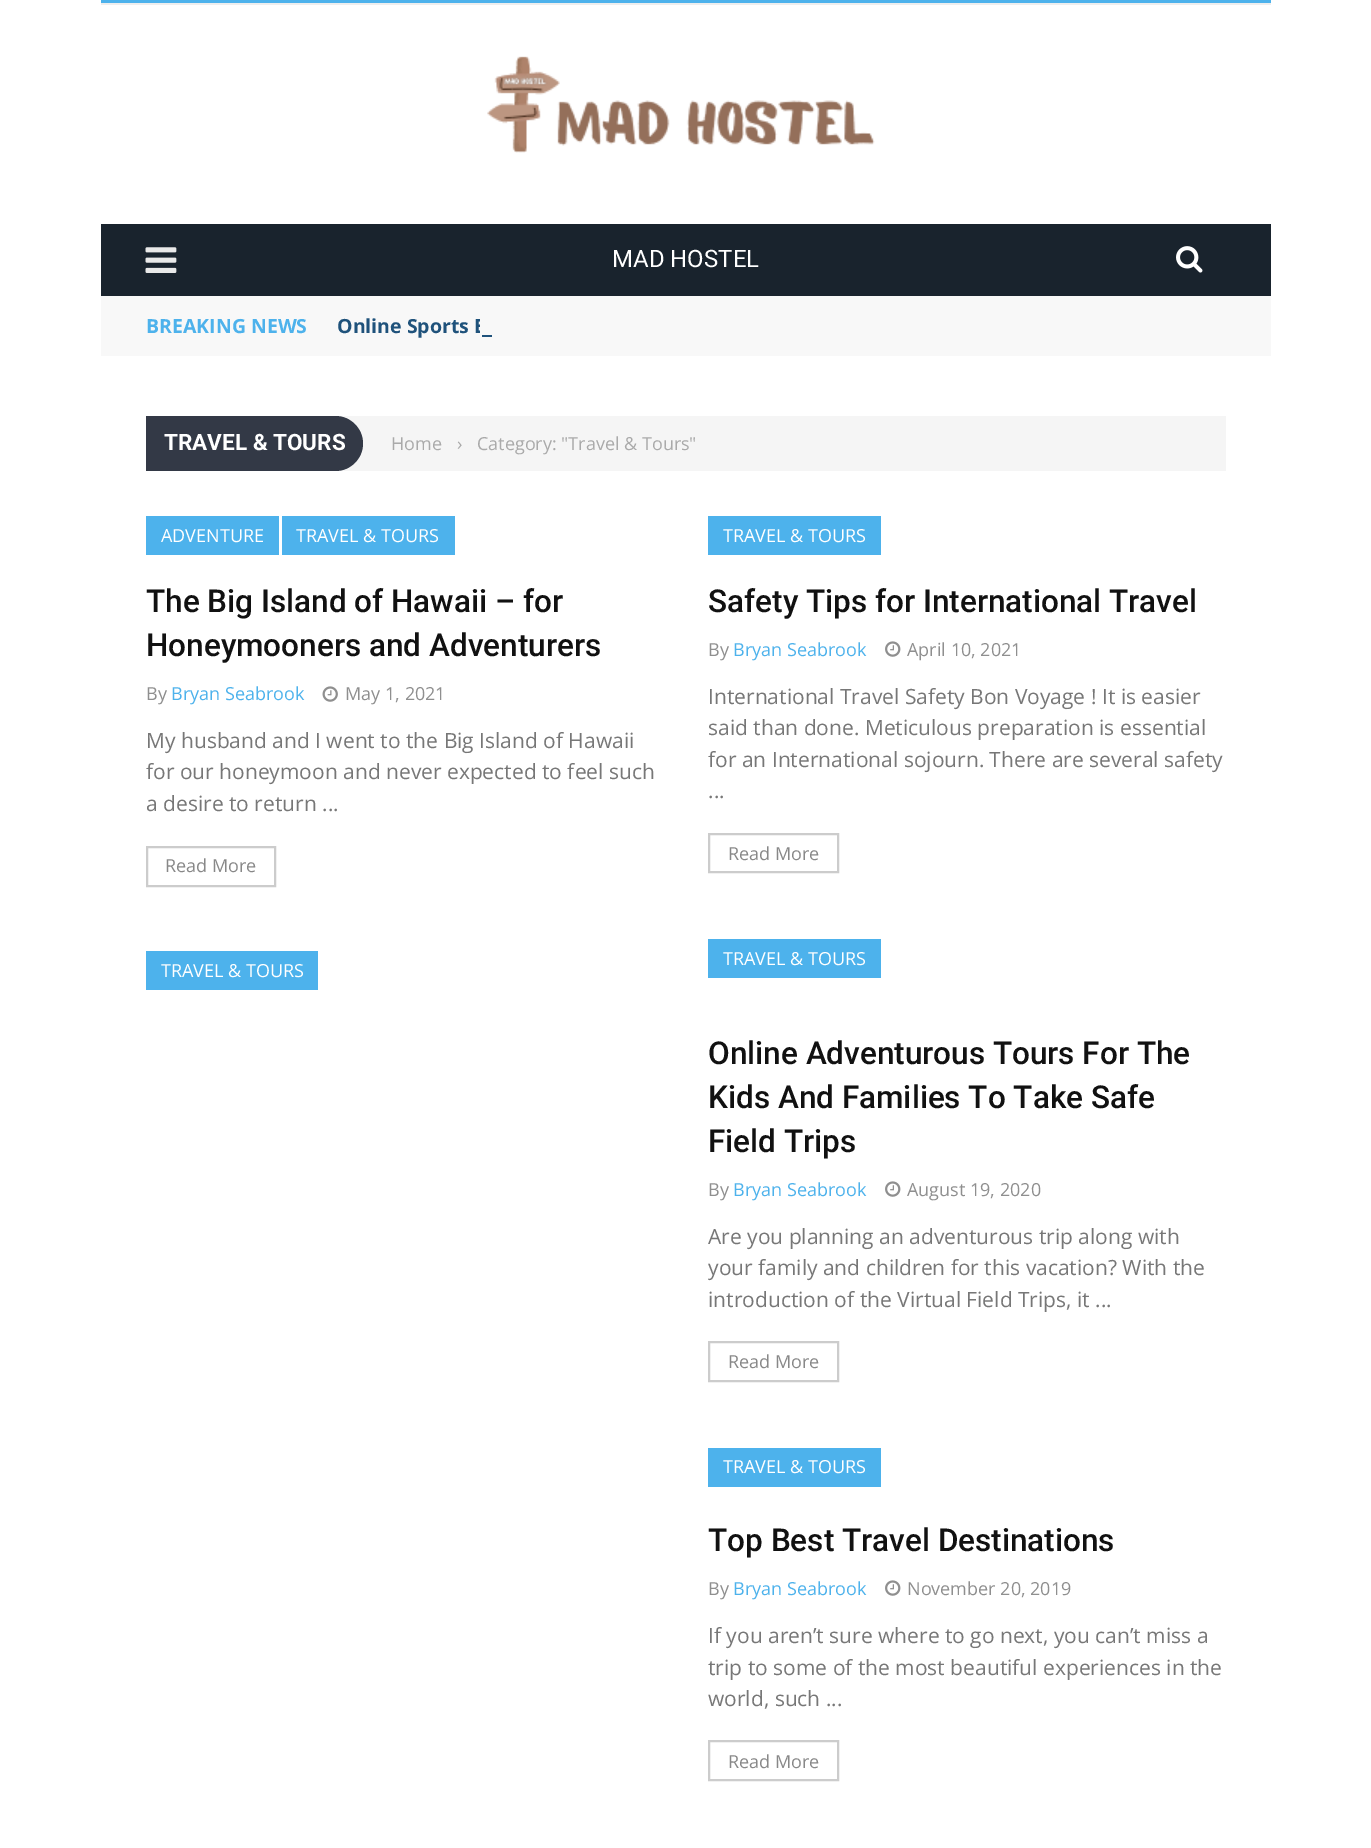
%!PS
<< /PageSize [1371 1848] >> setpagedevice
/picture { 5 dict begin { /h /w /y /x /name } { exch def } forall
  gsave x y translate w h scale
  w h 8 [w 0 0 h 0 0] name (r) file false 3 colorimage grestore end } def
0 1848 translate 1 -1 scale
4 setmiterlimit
1 setgray
0 0 1371 1848 rectfill
0.302 0.698 0.925 setrgbcolor
101 0 1170 3 rectfill
0.933 setgray
101 3 1170 2 rectfill
(img1.rgb) 487 56 388 97 picture
0.098 0.137 0.176 setrgbcolor
101 224 1170 72 rectfill
(img2.rgb) 145 247 32 26 picture
/Roboto-Regular [24 0 0 -24 0 0] selectfont
1 setgray
612 267 moveto (MAD HOSTEL) show
(img3.rgb) 1176 246 27 27 picture
0.973 setgray
101 296 1170 60 rectfill
/OpenSans-Bold [19.5 0 0 -19.5 0 0] selectfont
0.302 0.698 0.925 setrgbcolor
146 333 moveto (BREAKING NEWS) show
0.122 0.322 0.482 setrgbcolor
337 333 moveto (Online Sports B) show
0.973 setgray
480 319 6 14 rectfill
0.122 0.322 0.482 setrgbcolor
482 335 10 2 rectfill
0.961 setgray
336 416 890 55 rectfill
0.2 0.224 0.275 setrgbcolor
newpath 146 416 moveto 335.5 416 lineto 350.5 416 363 428.5 363 443.5 curveto 363 458.5 350.5 471 335.5 471 curveto 146 471 lineto closepath fill
/Roboto-Bold [22.5 0 0 -22.5 0 0] selectfont
1 setgray
164 450 moveto (TRAVEL & TOURS) show
/OpenSans-Regular [18 0 0 -18 0 0] selectfont
0.667 setgray
391 450 moveto (Home) show
457 450 moveto (›) show
477 450 moveto (Category: "Travel & Tours") show
0.302 0.698 0.925 setrgbcolor
146 516 133 39 rectfill
1 setgray
161 542 moveto (ADVENTURE) show
0.302 0.698 0.925 setrgbcolor
282 516 173 39 rectfill
1 setgray
296 542 moveto (TRAVEL & TOURS) show
/Roboto-Medium [31.5 0 0 -31.5 0 0] selectfont
0.067 setgray
146 612 moveto (The Big Island of Hawaii – for) show
146 656 moveto (Honeymooners and Adventurers) show
/OpenSans-Regular [18 0 0 -18 0 0] selectfont
0.561 setgray
146 700 moveto (By) show
0.302 0.698 0.925 setrgbcolor
171 700 moveto (Bryan Seabrook) show
(img4.rgb) 322 686 16 16 picture
0.561 setgray
345 700 moveto (May 1, 2021) show
/OpenSans-Regular [21 0 0 -21 0 0] selectfont
0.467 setgray
146 748 moveto (My husband and I went to the Big Island of Hawaii) show
146 779 moveto (for our honeymoon and never expected to feel such) show
146 811 moveto (a desire to return ...) show
0.8 setgray
2 setlinewidth
147 847 128 39 rectstroke
/OpenSans-Regular [18 0 0 -18 0 0] selectfont
0.533 setgray
165 872 moveto (Read More) show
0.302 0.698 0.925 setrgbcolor
708 516 173 39 rectfill
1 setgray
723 542 moveto (TRAVEL & TOURS) show
/Roboto-Medium [31.5 0 0 -31.5 0 0] selectfont
0.067 setgray
708 612 moveto (Safety Tips for International Travel) show
/OpenSans-Regular [18 0 0 -18 0 0] selectfont
0.561 setgray
708 656 moveto (By) show
0.302 0.698 0.925 setrgbcolor
733 656 moveto (Bryan Seabrook) show
(img5.rgb) 885 641 16 16 picture
0.561 setgray
907 656 moveto (April 10, 2021) show
/OpenSans-Regular [21 0 0 -21 0 0] selectfont
0.467 setgray
708 704 moveto (International Travel Safety Bon Voyage ! It is easier) show
708 735 moveto (said than done. Meticulous preparation is essential) show
708 767 moveto (for an International sojourn. There are several safety) show
708 798 moveto (...) show
0.8 setgray
709 834 129 38 rectstroke
/OpenSans-Regular [18 0 0 -18 0 0] selectfont
0.533 setgray
728 860 moveto (Read More) show
0.302 0.698 0.925 setrgbcolor
146 951 172 39 rectfill
1 setgray
161 977 moveto (TRAVEL & TOURS) show
0.302 0.698 0.925 setrgbcolor
708 939 173 39 rectfill
1 setgray
723 965 moveto (TRAVEL & TOURS) show
/Roboto-Medium [31.5 0 0 -31.5 0 0] selectfont
0.067 setgray
708 1064 moveto (Online Adventurous Tours For The) show
708 1108 moveto (Kids And Families To Take Safe) show
708 1152 moveto (Field Trips) show
/OpenSans-Regular [18 0 0 -18 0 0] selectfont
0.561 setgray
708 1196 moveto (By) show
0.302 0.698 0.925 setrgbcolor
733 1196 moveto (Bryan Seabrook) show
(img5.rgb) 885 1181 16 16 picture
0.561 setgray
907 1196 moveto (August 19, 2020) show
/OpenSans-Regular [21 0 0 -21 0 0] selectfont
0.467 setgray
708 1244 moveto (Are you planning an adventurous trip along with) show
708 1275 moveto (your family and children for this vacation? With the) show
708 1307 moveto (introduction of the Virtual Field Trips, it ...) show
0.8 setgray
709 1342 129 39 rectstroke
/OpenSans-Regular [18 0 0 -18 0 0] selectfont
0.533 setgray
728 1368 moveto (Read More) show
0.302 0.698 0.925 setrgbcolor
708 1448 173 39 rectfill
1 setgray
723 1473 moveto (TRAVEL & TOURS) show
/Roboto-Medium [31.5 0 0 -31.5 0 0] selectfont
0.067 setgray
708 1551 moveto (Top Best Travel Destinations) show
/OpenSans-Regular [18 0 0 -18 0 0] selectfont
0.561 setgray
708 1595 moveto (By) show
0.302 0.698 0.925 setrgbcolor
733 1595 moveto (Bryan Seabrook) show
(img5.rgb) 885 1580 16 16 picture
0.561 setgray
907 1595 moveto (November 20, 2019) show
/OpenSans-Regular [21 0 0 -21 0 0] selectfont
0.467 setgray
708 1643 moveto (If you aren’t sure where to go next, you can’t miss a) show
708 1675 moveto (trip to some of the most beautiful experiences in the) show
708 1706 moveto (world, such ...) show
0.8 setgray
709 1741 129 39 rectstroke
/OpenSans-Regular [18 0 0 -18 0 0] selectfont
0.533 setgray
728 1768 moveto (Read More) show
showpage
